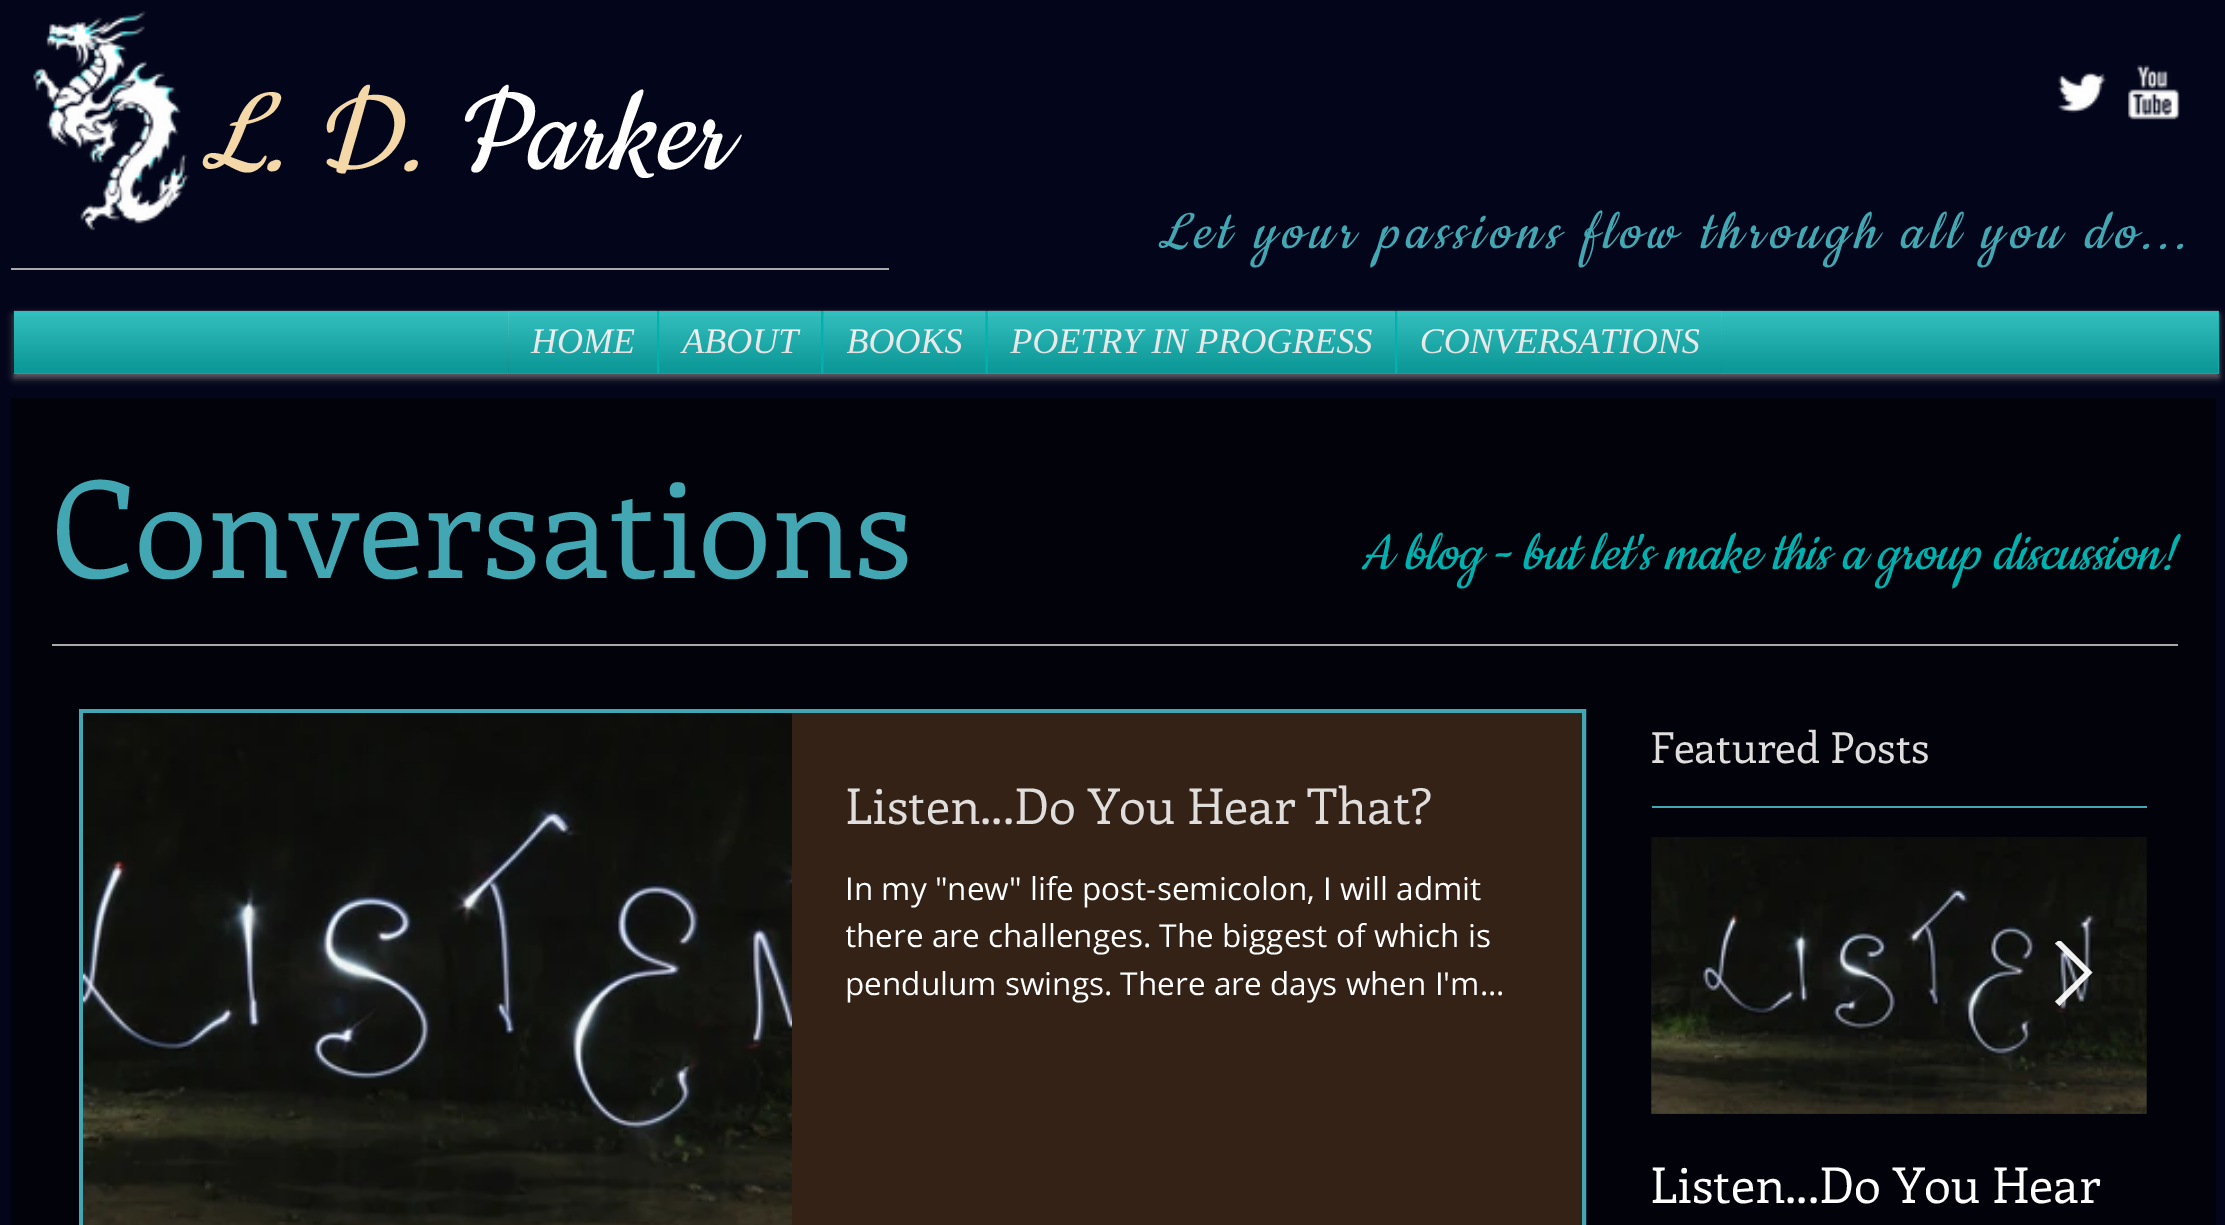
%!PS
<< /PageSize [2225 1225] /PageUsesTransparency true >> setpagedevice
/alpha { dup .setfillconstantalpha .setstrokeconstantalpha } def
/roundrect { 5 dict begin { /r /h /w /y /x } { exch def } forall
  x r add y moveto x w add y 2 copy h add r arct x w add y h add x 1 index r arct
  x y h add x y r arct x y 2 copy exch w add exch r arct closepath end } def
/shadow { 12 dict begin { /a /b /q /h /w /y /x } { exch def } forall gsave /was 0 def
  9 -2 -9 { dup b mul 4 div /e exch def 1 sub .425 mul 2.718 exch exp 1 add a .99 .min exch div /now exch def
    1 1 now sub 1 was sub div sub alpha /was now def
    w h .min e 2 mul add 0 gt { x e sub y e sub w e 2 mul add h e 2 mul add
      q e add b .6 mul add w h .min 2 div e add .min 0 .max roundrect fill } if } for grestore end } def
/picture { 5 dict begin { /h /w /y /x /name } { exch def } forall
  gsave x y translate w h scale
  w h 8 [w 0 0 h 0 0] name (r) file false 3 colorimage grestore end } def
0 .pushpdf14devicefilter
0 1225 translate 1 -1 scale
4 setmiterlimit
0.012 0.024 0.102 setrgbcolor
0 0 2225 1225 rectfill
(img1.rgb) 33 11 157 220 picture
/Cookie-Italic [133 0 0 -133 0 0] selectfont
0.957 0.847 0.659 setrgbcolor
199 169 moveto (L. D.) show
1 setgray
450 169 moveto (Parker) show
(img2.rgb) 2058 72 49 41 picture
(img3.rgb) 2128 65 52 55 picture
/Cookie-Italic [60.75 0 0 -60.75 0 0] selectfont
0.259 0.655 0.698 setrgbcolor
1157 248 moveto 6.1 0 (Let your passions flow through all you do...) ashow
0.667 0.659 0.659 setrgbcolor
11 268 878 2 rectfill
0.635 0.62 0.62 setrgbcolor
14 315 2205 63 0 3.5 0.6 shadow
0.004 0.694 0.686 setrgbcolor
14 311 2205 63 rectfill
(img4.rgb) 13 310 2206 63 picture
(img5.rgb) 14 316 2205 58 picture
509 311 1212 63 rectfill
/LiberationSerif-Italic [36 0 0 -36 0 0] selectfont
1 setgray
531 353 moveto (HOME) show
(img6.rgb) 508 310 149 63 picture
(img7.rgb) 508 316 149 58 picture
682 353 moveto (ABOUT) show
(img8.rgb) 659 310 162 63 picture
(img9.rgb) 659 316 162 58 picture
846 353 moveto (BOOKS) show
(img10.rgb) 823 310 163 63 picture
(img11.rgb) 823 316 163 58 picture
1010 353 moveto (POETRY IN PROGRESS) show
(img12.rgb) 987 310 408 63 picture
(img13.rgb) 987 316 408 58 picture
1420 353 moveto (CONVERSATIONS) show
(img14.rgb) 1397 310 325 63 picture
(img15.rgb) 1397 316 325 58 picture
0.004 0.008 0.039 setrgbcolor
11 398 2205 827 rectfill
/Enriqueta-Regular [135 0 0 -135 0 0] selectfont
0.259 0.655 0.698 setrgbcolor
51 578 moveto (Conversations) show
/Cookie-Italic [60.75 0 0 -60.75 0 0] selectfont
0.004 0.694 0.686 setrgbcolor
1361 569 moveto (A blog - but let's make this a group discussion!) show
0.667 0.659 0.659 setrgbcolor
52 644 2126 2 rectfill
/Enriqueta-Regular [42.75 0 0 -42.75 0 0] selectfont
0.878 0.867 0.867 setrgbcolor
1650 763 moveto (Featured Posts) show
0.259 0.655 0.698 setrgbcolor
5 setlinewidth
81.5 711.5 1502 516 rectstroke
(img16.rgb) 83 713 709 512 picture
0.204 0.133 0.086 setrgbcolor
792 713 790 512 rectfill
/Enriqueta-Regular [49.5 0 0 -49.5 0 0] selectfont
0.878 0.867 0.867 setrgbcolor
845 824 moveto (Listen...Do You Hear That?) show
/OpenSans-Regular [31.5 0 0 -31.5 0 0] selectfont
1 setgray
845 900 moveto (In my "new" life post-semicolon, I will admit) show
gsave
846 864 682 142 rectclip
845 947 moveto (there are challenges. The biggest of which is) show
grestore
845 995 moveto (pendulum swings. There are days when I'm...) show
0.259 0.655 0.698 setrgbcolor
1652 806 495 2 rectfill
(img17.rgb) 1651 837 496 277 picture
(img18.rgb) 1651 837 496 277 picture
0.9 alpha
1 setgray
newpath 2057 943 moveto 2059 941 lineto 2091 973 lineto 2059 1004 lineto 2057 1002 lineto 2086 973 lineto closepath fill
gsave
2052 941 43 67 rectclip
1.8 setlinewidth
newpath 2056.5 943.5 moveto 2059.5 941 lineto 2091 972.5 lineto 2059.5 1004.5 lineto 2056.5 1001.5 lineto 2086 972.5 lineto closepath stroke
grestore
/Enriqueta-Regular [49.5 0 0 -49.5 0 0] selectfont
1 alpha
1650 1203 moveto (Listen...Do You Hear) show
.poppdf14devicefilter showpage
